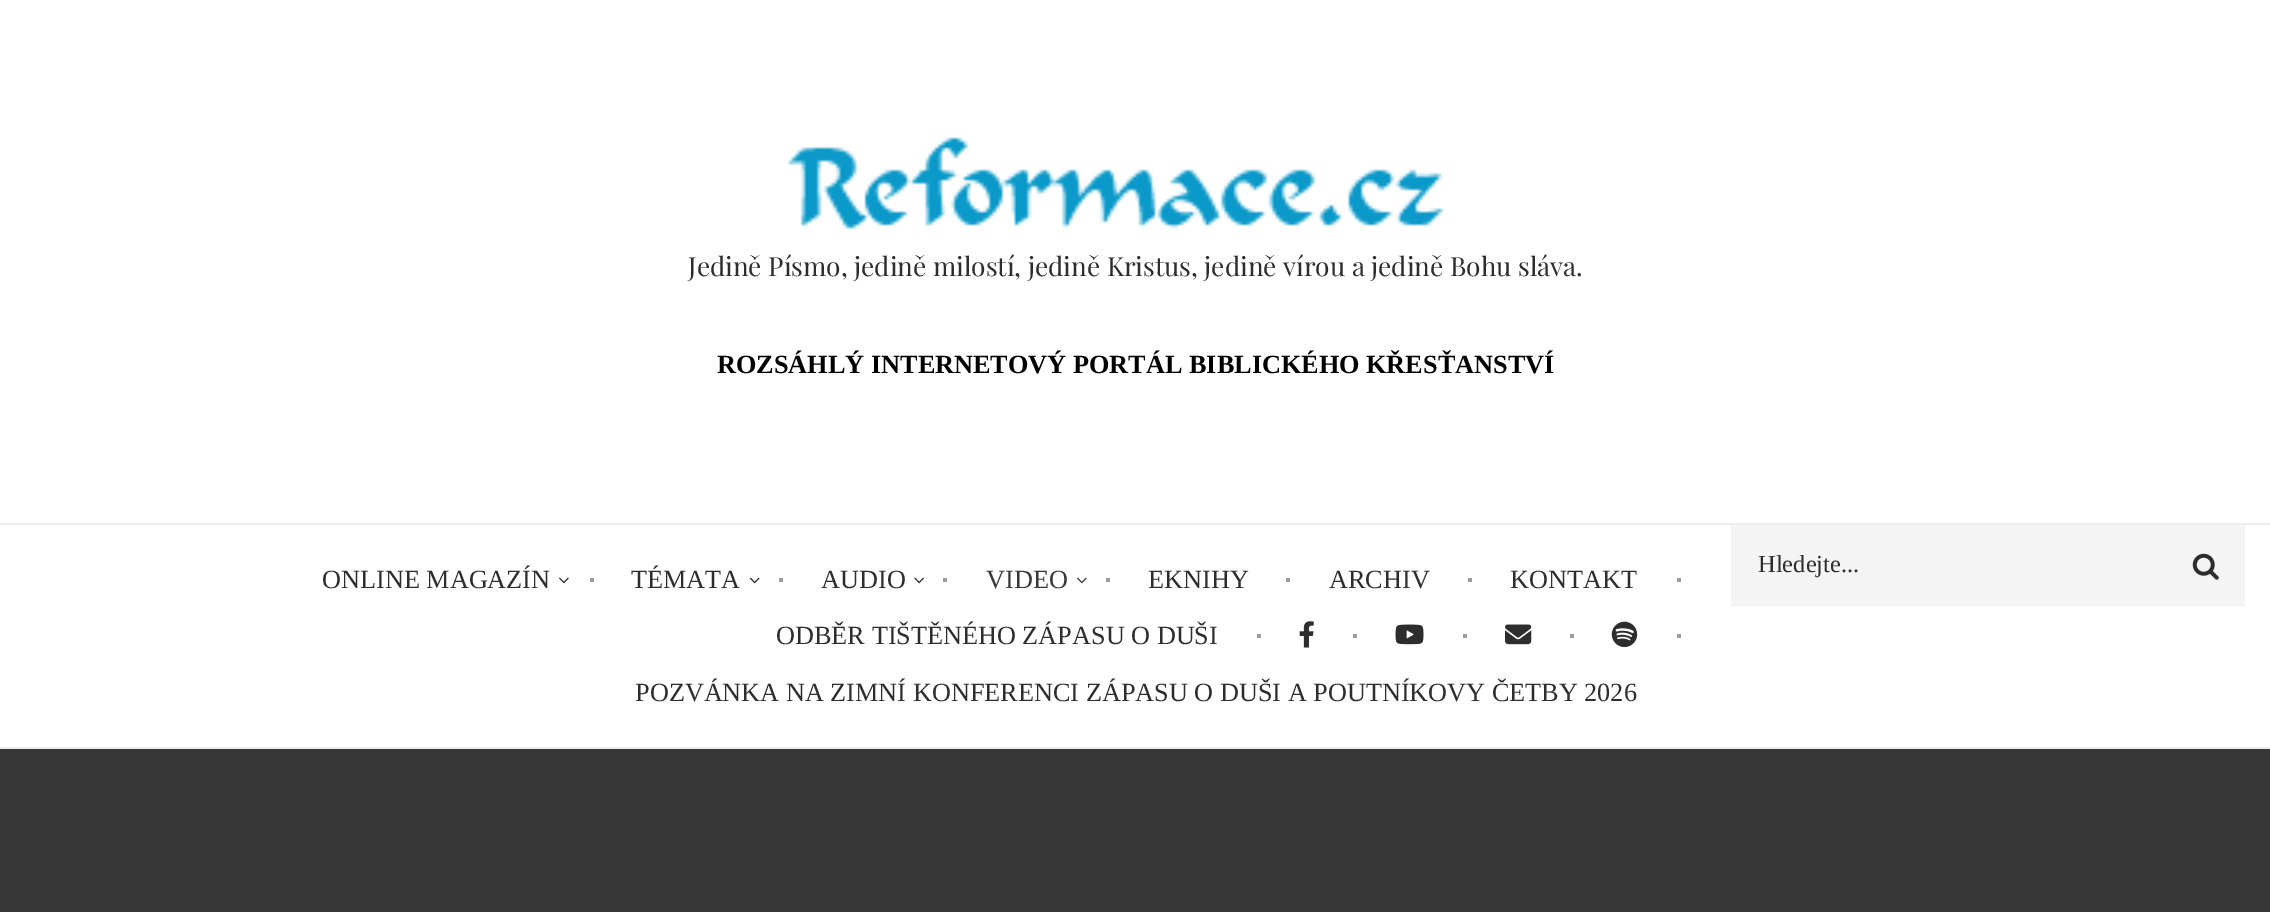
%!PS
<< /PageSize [2270 912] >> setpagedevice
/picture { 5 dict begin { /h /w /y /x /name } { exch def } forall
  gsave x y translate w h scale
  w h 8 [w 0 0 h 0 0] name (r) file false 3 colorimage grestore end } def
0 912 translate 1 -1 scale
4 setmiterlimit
1 setgray
0 0 2270 912 rectfill
(img1.rgb) 788 137 658 92 picture
/PlayfairDisplay-Regular [26.25 0 0 -26.25 0 0] selectfont
0.176 setgray
688 276 moveto (Jedině Písmo, jedině milostí, jedině Kristus, jedině vírou a jedině Bohu sláva.) show
/LiberationSerif-Bold [26.25 0 0 -26.25 0 0] selectfont
0 setgray
717 373 moveto (ROZSÁHLÝ INTERNETOVÝ PORTÁL BIBLICKÉHO KŘESŤANSTVÍ) show
0.933 setgray
0 523 2270 2 rectfill
0 747 2270 2 rectfill
/LiberationSerif-Regular [26.25 0 0 -26.25 0 0] selectfont
0.176 setgray
322 588 moveto (ONLINE MAGAZÍN) show
(img2.rgb) 559 577 10 7 picture
0.612 setgray
590 578 4 4 rectfill
0.176 setgray
631 588 moveto (TÉMATA) show
(img3.rgb) 749 577 11 7 picture
0.612 setgray
779 578 4 4 rectfill
0.176 setgray
821 588 moveto (AUDIO) show
(img4.rgb) 914 577 10 7 picture
0.612 setgray
943 578 4 4 rectfill
0.216 setgray
986 588 moveto (VIDEO) show
(img5.rgb) 1077 577 10 7 picture
0.612 setgray
1106 578 4 4 rectfill
0.176 setgray
1148 588 moveto (EKNIHY) show
0.612 setgray
1286 578 4 4 rectfill
0.176 setgray
1329 588 moveto (ARCHIV) show
0.612 setgray
1468 578 4 4 rectfill
0.176 setgray
1510 588 moveto (KONTAKT) show
0.612 setgray
1677 578 4 4 rectfill
0.176 setgray
776 644 moveto (ODBĚR TIŠTĚNÉHO ZÁPASU O DUŠI) show
0.612 setgray
1257 634 4 4 rectfill
(img6.rgb) 1299 621 15 27 picture
1353 634 4 4 rectfill
(img7.rgb) 1395 624 29 21 picture
1463 634 4 4 rectfill
(img8.rgb) 1505 624 27 21 picture
1570 634 4 4 rectfill
(img9.rgb) 1611 621 27 27 picture
1677 634 4 4 rectfill
0.176 setgray
635 701 moveto (POZVÁNKA NA ZIMNÍ KONFERENCI ZÁPASU O DUŠI A POUTNÍKOVY ČETBY 2026) show
0.957 setgray
1731 525 514 81 rectfill
/LiberationSerif-Regular [24.5 0 0 -24.5 0 0] selectfont
0.176 setgray
1758 572 moveto (Hledejte...) show
(img10.rgb) 2192 553 27 27 picture
0.216 setgray
0 749 2270 163 rectfill
showpage
